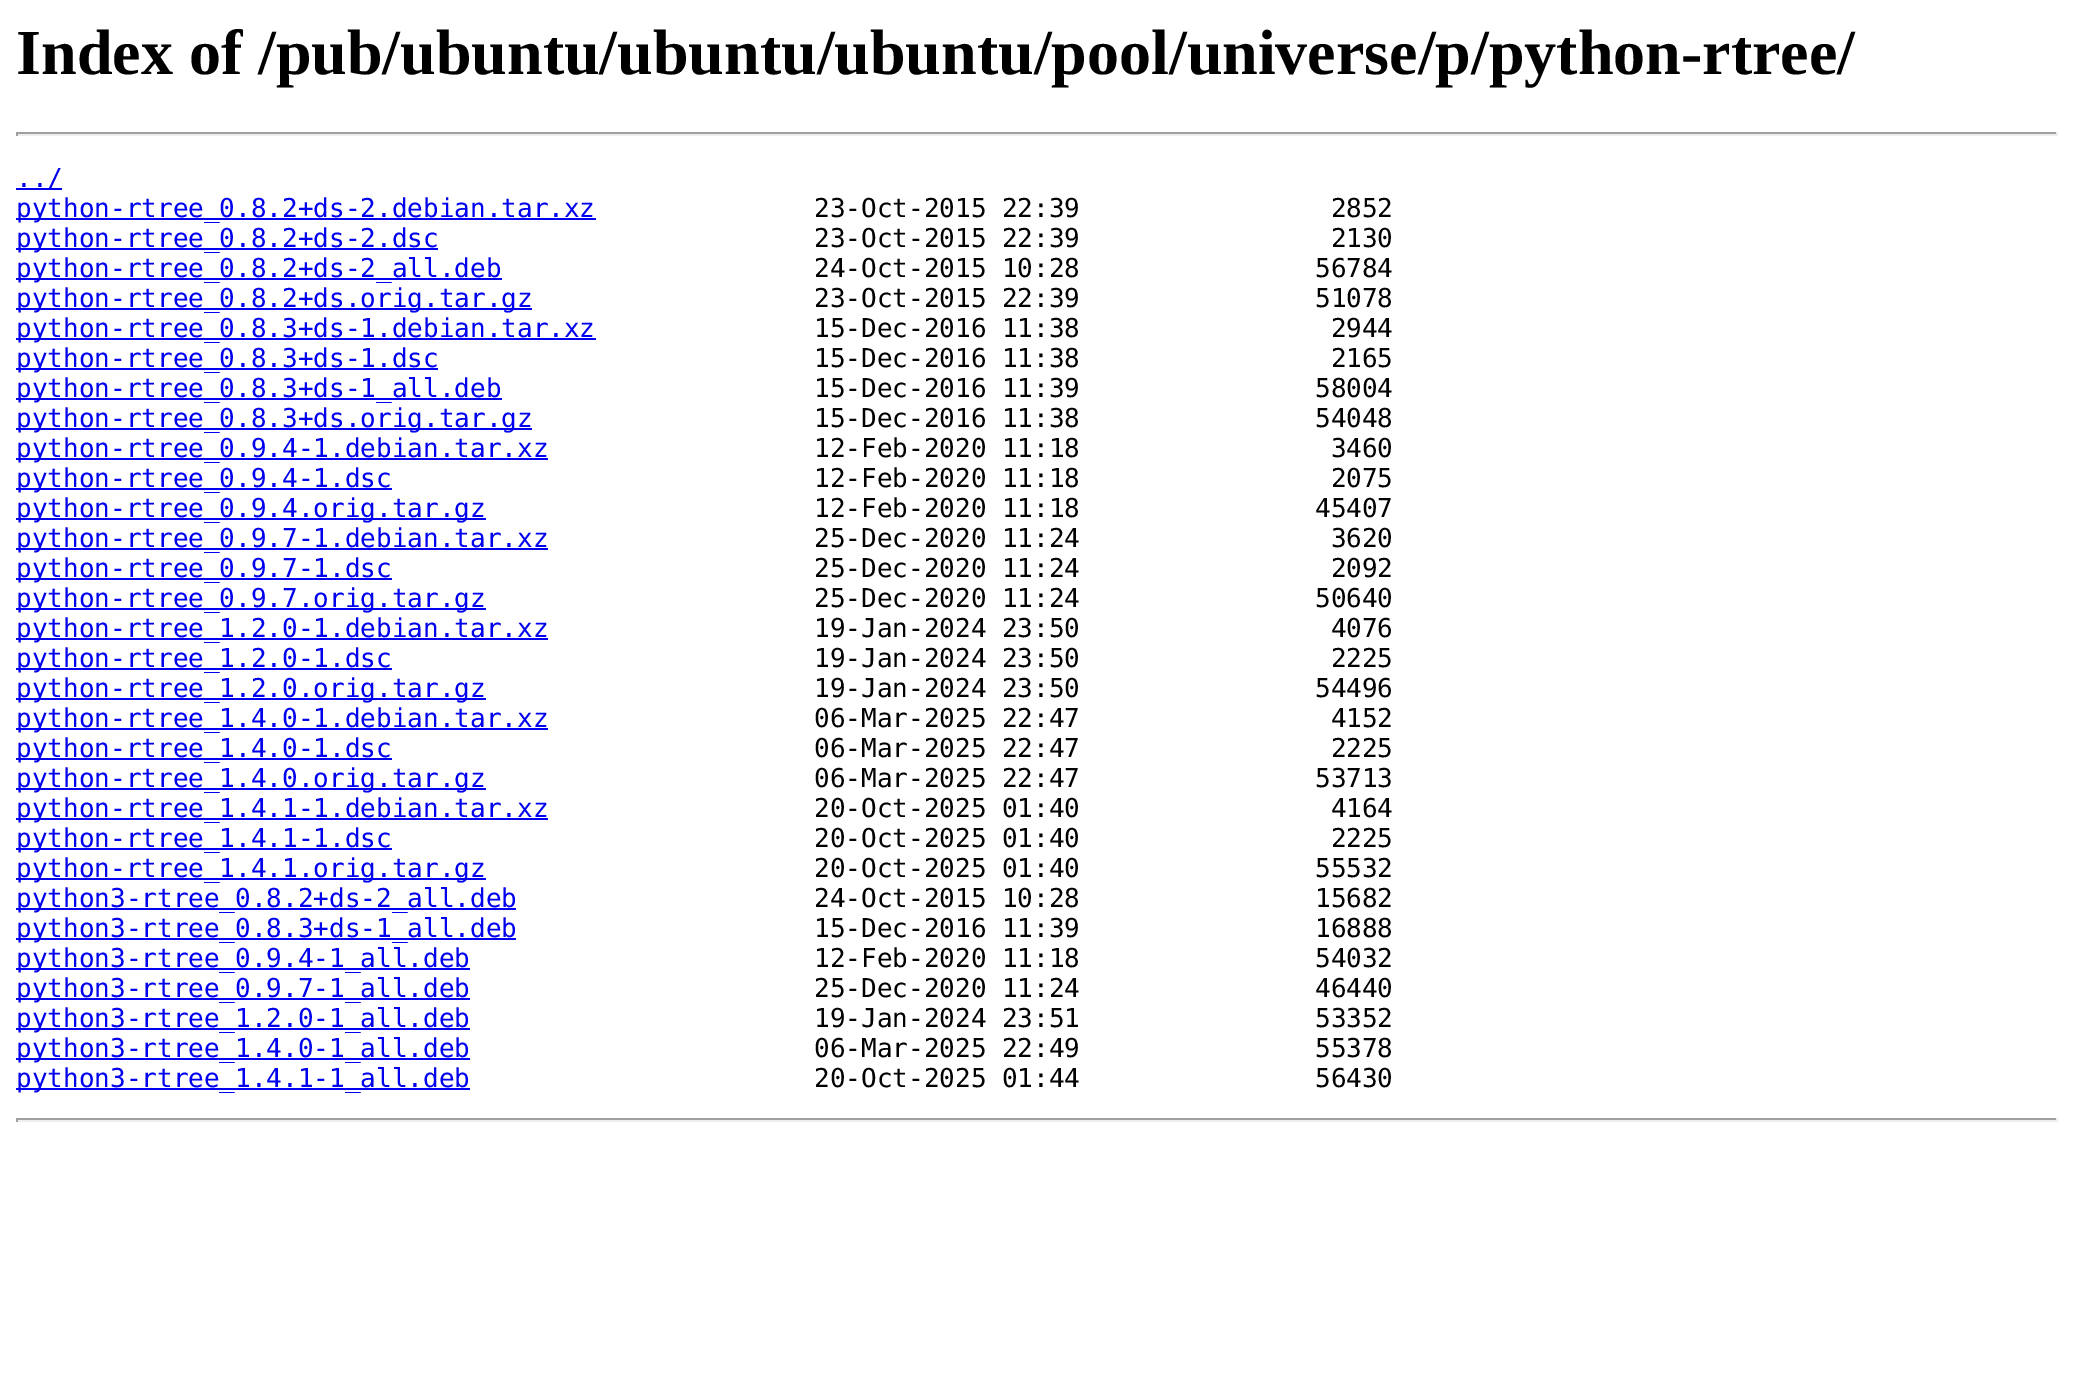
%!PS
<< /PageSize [2073 1380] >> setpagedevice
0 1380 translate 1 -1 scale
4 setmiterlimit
1 setgray
0 0 2073 1380 rectfill
/LiberationSerif-Bold [64 0 0 -64 0 0] selectfont
0 setgray
16 74 moveto (Index of /pub/ubuntu/ubuntu/ubuntu/pool/universe/p/python-rtree/) show
0.624 setgray
16 132 2042 2 rectfill
0.933 setgray
2056 132 2 4 rectfill
16 134 2042 2 rectfill
0.624 setgray
16 132 2 4 rectfill
0 0 0.933 setrgbcolor
16 188 46 2 rectfill
/DejaVuSansMono-Regular [26 0 0 -26 0 0] selectfont
16 187 moveto (../) show
16 218 580 2 rectfill
16 217 moveto (python-rtree_0.8.2+ds-2.debian.tar.xz) show
0 setgray
814 217 moveto (23-Oct-2015 22:39                2852) show
0 0 0.933 setrgbcolor
16 248 422 2 rectfill
16 247 moveto (python-rtree_0.8.2+ds-2.dsc) show
0 setgray
814 247 moveto (23-Oct-2015 22:39                2130) show
0 0 0.933 setrgbcolor
16 278 486 2 rectfill
16 277 moveto (python-rtree_0.8.2+ds-2_all.deb) show
0 setgray
814 277 moveto (24-Oct-2015 10:28               56784) show
0 0 0.933 setrgbcolor
16 308 516 2 rectfill
16 307 moveto (python-rtree_0.8.2+ds.orig.tar.gz) show
0 setgray
814 307 moveto (23-Oct-2015 22:39               51078) show
0 0 0.933 setrgbcolor
16 338 580 2 rectfill
16 337 moveto (python-rtree_0.8.3+ds-1.debian.tar.xz) show
0 setgray
814 337 moveto (15-Dec-2016 11:38                2944) show
0 0 0.933 setrgbcolor
16 368 422 2 rectfill
16 367 moveto (python-rtree_0.8.3+ds-1.dsc) show
0 setgray
814 367 moveto (15-Dec-2016 11:38                2165) show
0 0 0.933 setrgbcolor
16 398 486 2 rectfill
16 397 moveto (python-rtree_0.8.3+ds-1_all.deb) show
0 setgray
814 397 moveto (15-Dec-2016 11:39               58004) show
0 0 0.933 setrgbcolor
16 428 516 2 rectfill
16 427 moveto (python-rtree_0.8.3+ds.orig.tar.gz) show
0 setgray
814 427 moveto (15-Dec-2016 11:38               54048) show
0 0 0.933 setrgbcolor
16 458 532 2 rectfill
16 457 moveto (python-rtree_0.9.4-1.debian.tar.xz) show
0 setgray
814 457 moveto (12-Feb-2020 11:18                3460) show
0 0 0.933 setrgbcolor
16 488 376 2 rectfill
16 487 moveto (python-rtree_0.9.4-1.dsc) show
0 setgray
814 487 moveto (12-Feb-2020 11:18                2075) show
0 0 0.933 setrgbcolor
16 518 470 2 rectfill
16 517 moveto (python-rtree_0.9.4.orig.tar.gz) show
0 setgray
814 517 moveto (12-Feb-2020 11:18               45407) show
0 0 0.933 setrgbcolor
16 548 532 2 rectfill
16 547 moveto (python-rtree_0.9.7-1.debian.tar.xz) show
0 setgray
814 547 moveto (25-Dec-2020 11:24                3620) show
0 0 0.933 setrgbcolor
16 578 376 2 rectfill
16 577 moveto (python-rtree_0.9.7-1.dsc) show
0 setgray
814 577 moveto (25-Dec-2020 11:24                2092) show
0 0 0.933 setrgbcolor
16 608 470 2 rectfill
16 607 moveto (python-rtree_0.9.7.orig.tar.gz) show
0 setgray
814 607 moveto (25-Dec-2020 11:24               50640) show
0 0 0.933 setrgbcolor
16 638 532 2 rectfill
16 637 moveto (python-rtree_1.2.0-1.debian.tar.xz) show
0 setgray
814 637 moveto (19-Jan-2024 23:50                4076) show
0 0 0.933 setrgbcolor
16 668 376 2 rectfill
16 667 moveto (python-rtree_1.2.0-1.dsc) show
0 setgray
814 667 moveto (19-Jan-2024 23:50                2225) show
0 0 0.933 setrgbcolor
16 698 470 2 rectfill
16 697 moveto (python-rtree_1.2.0.orig.tar.gz) show
0 setgray
814 697 moveto (19-Jan-2024 23:50               54496) show
0 0 0.933 setrgbcolor
16 728 532 2 rectfill
16 727 moveto (python-rtree_1.4.0-1.debian.tar.xz) show
0 setgray
814 727 moveto (06-Mar-2025 22:47                4152) show
0 0 0.933 setrgbcolor
16 758 376 2 rectfill
16 757 moveto (python-rtree_1.4.0-1.dsc) show
0 setgray
814 757 moveto (06-Mar-2025 22:47                2225) show
0 0 0.933 setrgbcolor
16 788 470 2 rectfill
16 787 moveto (python-rtree_1.4.0.orig.tar.gz) show
0 setgray
814 787 moveto (06-Mar-2025 22:47               53713) show
0 0 0.933 setrgbcolor
16 818 532 2 rectfill
16 817 moveto (python-rtree_1.4.1-1.debian.tar.xz) show
0 setgray
814 817 moveto (20-Oct-2025 01:40                4164) show
0 0 0.933 setrgbcolor
16 848 376 2 rectfill
16 847 moveto (python-rtree_1.4.1-1.dsc) show
0 setgray
814 847 moveto (20-Oct-2025 01:40                2225) show
0 0 0.933 setrgbcolor
16 878 470 2 rectfill
16 877 moveto (python-rtree_1.4.1.orig.tar.gz) show
0 setgray
814 877 moveto (20-Oct-2025 01:40               55532) show
0 0 0.933 setrgbcolor
16 908 500 2 rectfill
16 907 moveto (python3-rtree_0.8.2+ds-2_all.deb) show
0 setgray
814 907 moveto (24-Oct-2015 10:28               15682) show
0 0 0.933 setrgbcolor
16 938 500 2 rectfill
16 937 moveto (python3-rtree_0.8.3+ds-1_all.deb) show
0 setgray
814 937 moveto (15-Dec-2016 11:39               16888) show
0 0 0.933 setrgbcolor
16 968 454 2 rectfill
16 967 moveto (python3-rtree_0.9.4-1_all.deb) show
0 setgray
814 967 moveto (12-Feb-2020 11:18               54032) show
0 0 0.933 setrgbcolor
16 998 454 2 rectfill
16 997 moveto (python3-rtree_0.9.7-1_all.deb) show
0 setgray
814 997 moveto (25-Dec-2020 11:24               46440) show
0 0 0.933 setrgbcolor
16 1028 454 2 rectfill
16 1027 moveto (python3-rtree_1.2.0-1_all.deb) show
0 setgray
814 1027 moveto (19-Jan-2024 23:51               53352) show
0 0 0.933 setrgbcolor
16 1058 454 2 rectfill
16 1057 moveto (python3-rtree_1.4.0-1_all.deb) show
0 setgray
814 1057 moveto (06-Mar-2025 22:49               55378) show
0 0 0.933 setrgbcolor
16 1088 454 2 rectfill
16 1087 moveto (python3-rtree_1.4.1-1_all.deb) show
0 setgray
814 1087 moveto (20-Oct-2025 01:44               56430) show
0.624 setgray
16 1118 2042 2 rectfill
0.933 setgray
2056 1118 2 4 rectfill
16 1120 2042 2 rectfill
0.624 setgray
16 1118 2 4 rectfill
showpage
